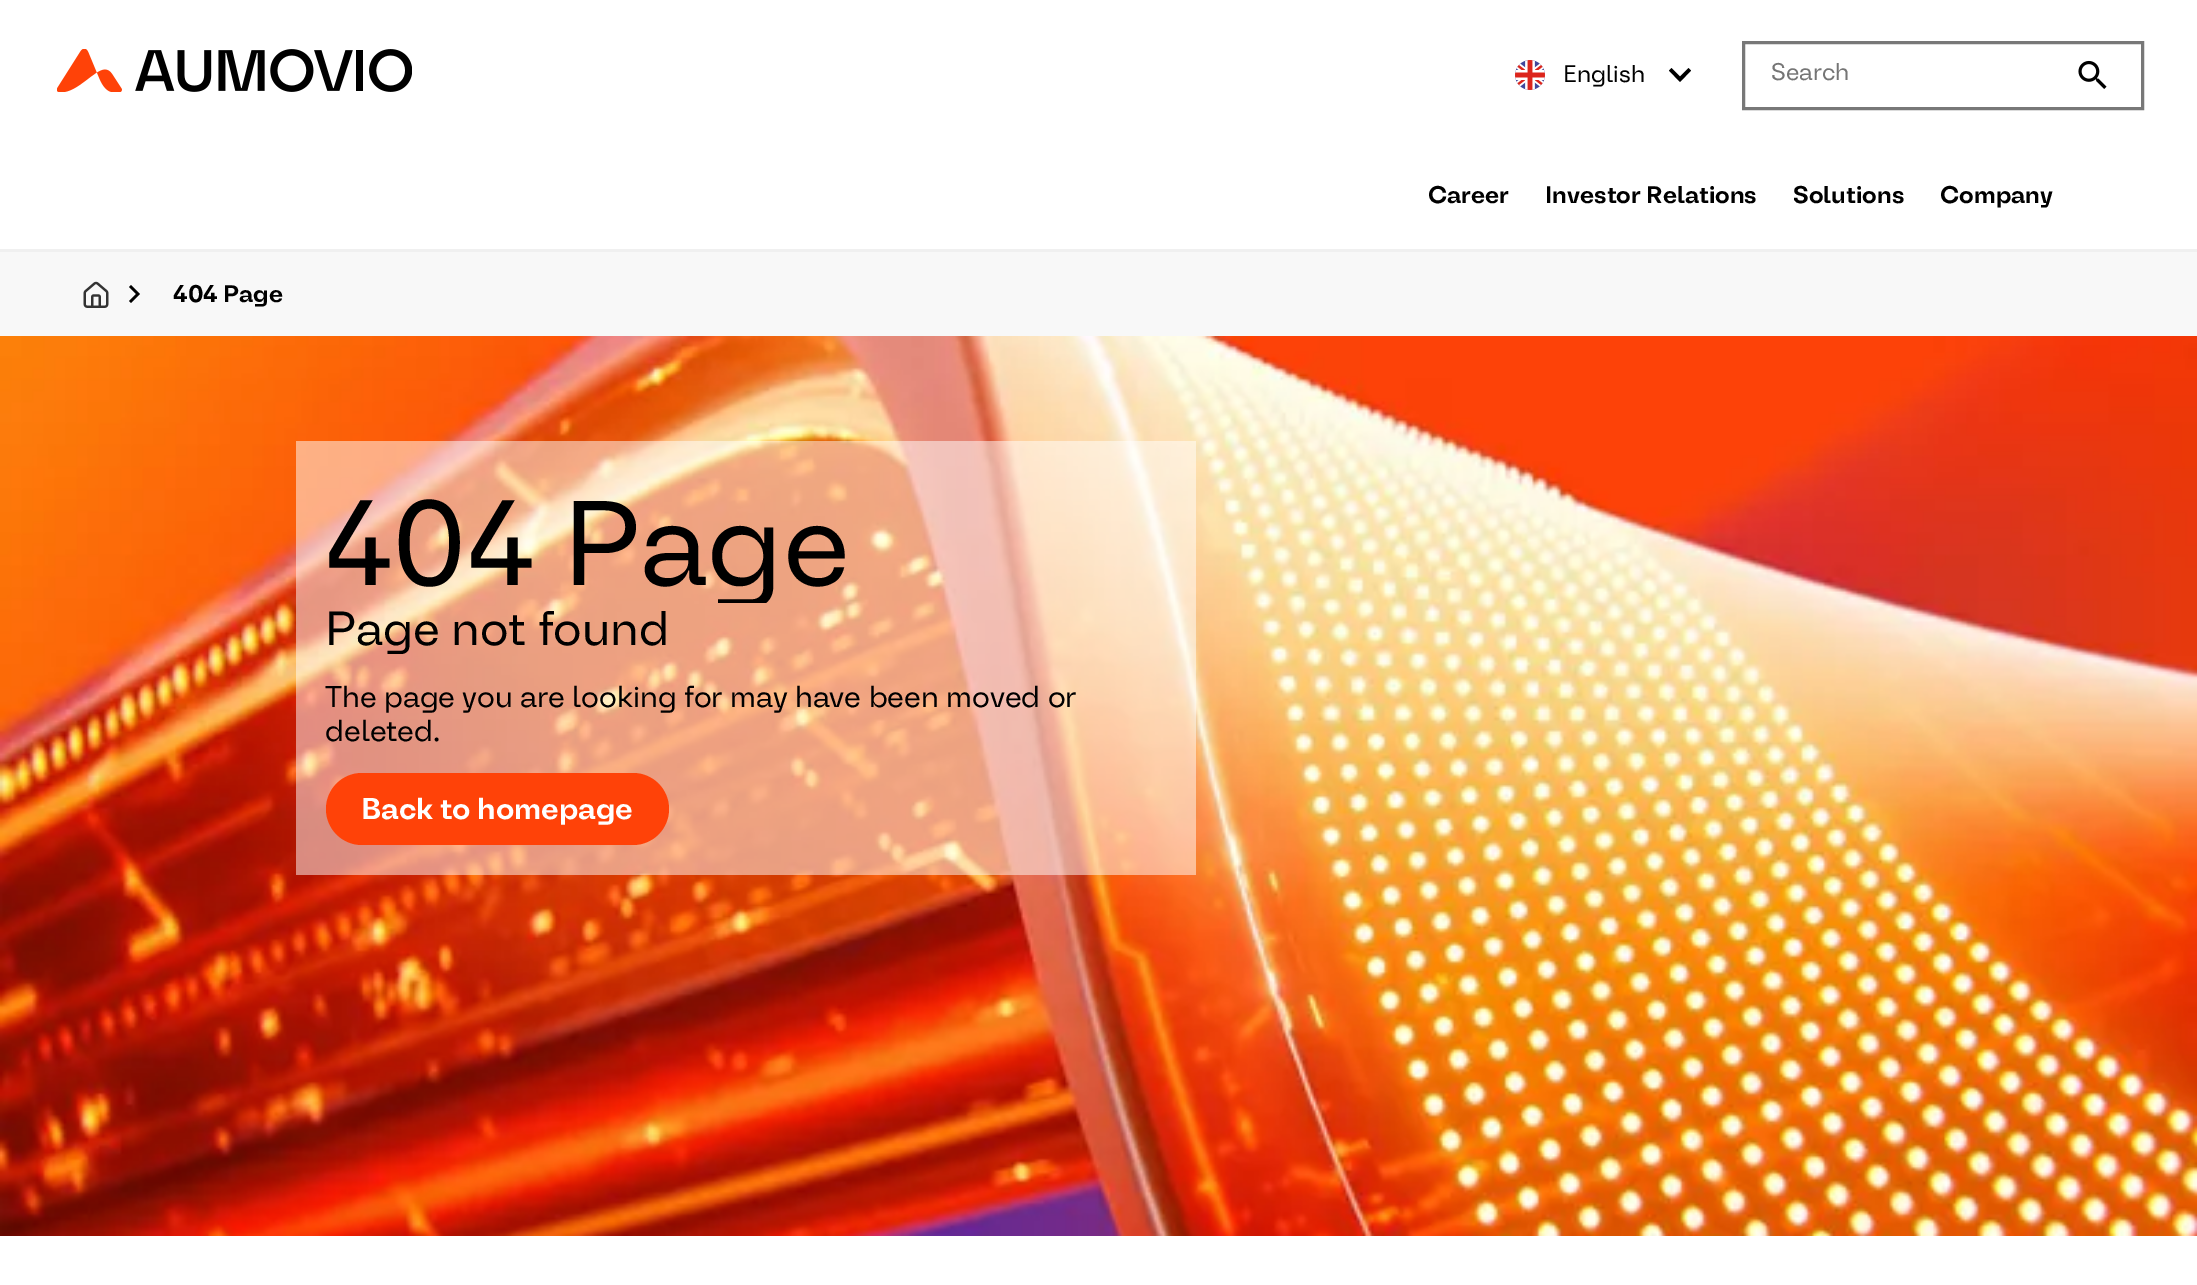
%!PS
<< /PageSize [2197 1285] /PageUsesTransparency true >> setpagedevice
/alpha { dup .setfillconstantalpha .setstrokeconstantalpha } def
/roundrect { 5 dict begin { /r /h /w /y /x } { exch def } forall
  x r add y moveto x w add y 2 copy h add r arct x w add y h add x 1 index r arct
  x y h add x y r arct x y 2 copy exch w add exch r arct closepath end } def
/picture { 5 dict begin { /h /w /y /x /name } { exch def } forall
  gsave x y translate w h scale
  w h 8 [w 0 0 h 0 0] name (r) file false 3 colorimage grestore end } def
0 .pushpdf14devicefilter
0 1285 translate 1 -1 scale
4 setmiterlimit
1 setgray
0 0 2197 1285 rectfill
0.941 setgray
0 249 2197 3 rectfill
(img1.rgb) 57 49 355 43 picture
(img2.rgb) 1515 60 30 30 picture
/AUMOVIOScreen-Regular [24 0 0 -24 0 0] selectfont
0 setgray
1563 82 moveto (English) show
newpath 1671.5 68 moveto 1680 76.5 lineto 1688.5 68 lineto 1691 70.5 lineto 1680 82 lineto 1669 70.5 lineto closepath fill
0.471 setgray
3 setlinewidth
1743.5 42.5 399 66 rectstroke
0.459 setgray
1771 80 moveto (Search) show
(img3.rgb) 2078 60 29 29 picture
/AUMOVIOScreen-Bold [24 0 0 -24 0 0] selectfont
0 setgray
1428 203 moveto (Career) show
1545 203 moveto (Investor Relations) show
1793 203 moveto (Solutions) show
1940 203 moveto (Company) show
0.973 setgray
0 252 2197 84 rectfill
(img4.rgb) 83 281 26 27 picture
0 setgray
newpath 129 301 moveto 136 294 lineto 129 287 lineto 131 285 lineto 140 294 lineto 131 303 lineto closepath fill
173 302 moveto (404 Page) show
(img5.rgb) 0 336 2197 900 picture
0.5 alpha
1 setgray
296 441 900 434 rectfill
gsave
326 483 840 120 rectclip
/AUMOVIOScreen-Regular [120 0 0 -120 0 0] selectfont
1 alpha
0 setgray
325 585 moveto (404 Page) show
grestore
/AUMOVIOScreen-Regular [48 0 0 -48 0 0] selectfont
1 alpha
0 setgray
325 645 moveto (Page not found) show
/AUMOVIOScreen-Regular [30 0 0 -30 0 0] selectfont
325 707 moveto (The page you are looking for may have been moved or) show
325 741 moveto (deleted.) show
1 0.259 0.031 setrgbcolor
326 773 343 72 36 roundrect fill
/AUMOVIOScreen-Bold [30 0 0 -30 0 0] selectfont
1 setgray
361 819 moveto (Back to homepage) show
.poppdf14devicefilter showpage
